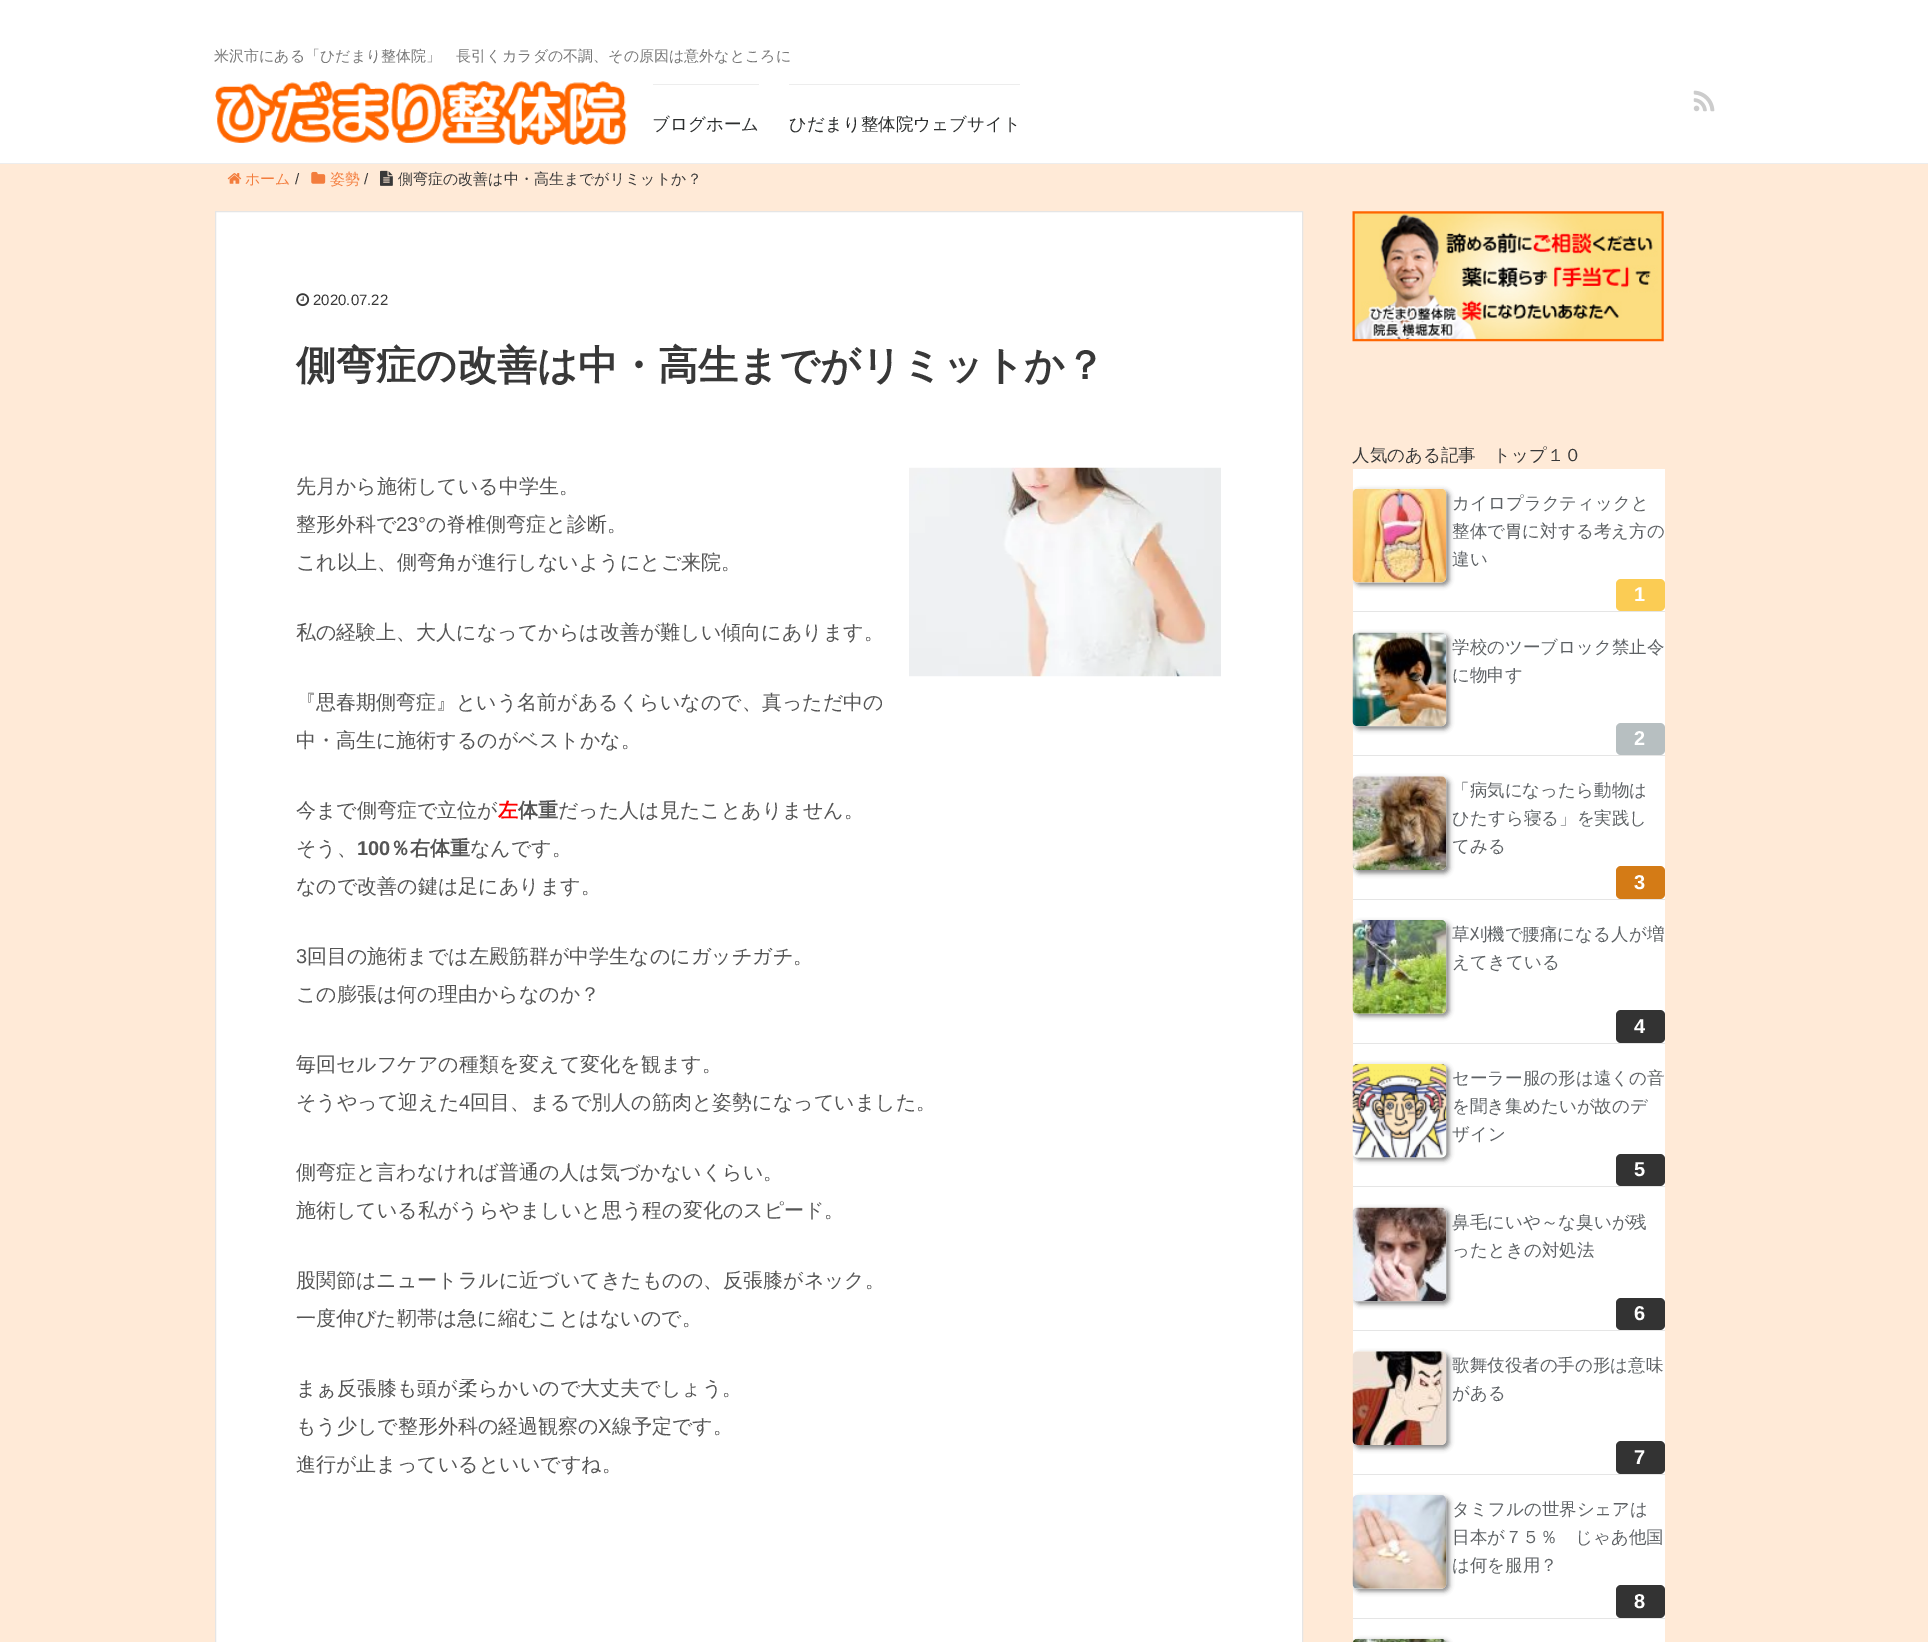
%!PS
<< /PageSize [1928 1642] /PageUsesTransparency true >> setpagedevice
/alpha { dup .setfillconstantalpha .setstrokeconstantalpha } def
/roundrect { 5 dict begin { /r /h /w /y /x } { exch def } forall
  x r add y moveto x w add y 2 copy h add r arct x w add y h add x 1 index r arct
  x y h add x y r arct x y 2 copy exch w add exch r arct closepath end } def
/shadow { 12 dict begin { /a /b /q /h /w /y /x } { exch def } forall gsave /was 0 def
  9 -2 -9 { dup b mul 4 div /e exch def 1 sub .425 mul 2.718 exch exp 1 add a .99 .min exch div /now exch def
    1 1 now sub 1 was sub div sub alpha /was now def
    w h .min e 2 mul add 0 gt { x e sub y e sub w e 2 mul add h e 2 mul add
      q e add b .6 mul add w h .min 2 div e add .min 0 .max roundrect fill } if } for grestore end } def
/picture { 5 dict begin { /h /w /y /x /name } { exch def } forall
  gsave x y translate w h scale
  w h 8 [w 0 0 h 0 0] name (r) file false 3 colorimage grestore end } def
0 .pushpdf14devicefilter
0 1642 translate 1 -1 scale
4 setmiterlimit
1 setgray
0 0 1928 1642 rectfill
/WenQuanYiZenHei-Medium [15 0 0 -15 0 0] selectfont
0.467 setgray
214 61 moveto (米沢市にある「ひだまり整体院」　長引くカラダの不調、その原因は意外なところに) show
(img1.rgb) 215 81 412 64 picture
(img2.rgb) 1693 90 22 22 picture
0.929 setgray
0 163 1928 1 rectfill
653 84 106 1 rectfill
/WenQuanYiZenHei-Medium [17.5 0 0 -17.5 0 0] selectfont
0.169 0.176 0.176 setrgbcolor
652 130 moveto (ブログホーム) show
0.929 setgray
789 84 231 1 rectfill
0.169 0.176 0.176 setrgbcolor
789 130 moveto (ひだまり整体院ウェブサイト) show
1 0.918 0.843 setrgbcolor
0 164 1928 1478 rectfill
(img3.rgb) 227 173 15 11 picture
/WenQuanYiZenHei-Medium [15 0 0 -15 0 0] selectfont
0.953 0.49 0.239 setrgbcolor
245 184 moveto (ホーム) show
/LiberationSans-Regular [15 0 0 -15 0 0] selectfont
0.22 setgray
295 184 moveto (/) show
(img4.rgb) 311 171 15 13 picture
/WenQuanYiZenHei-Medium [15 0 0 -15 0 0] selectfont
0.953 0.49 0.239 setrgbcolor
330 184 moveto (姿勢) show
/LiberationSans-Regular [15 0 0 -15 0 0] selectfont
0.22 setgray
364 184 moveto (/) show
(img5.rgb) 380 170 13 16 picture
/WenQuanYiZenHei-Medium [15 0 0 -15 0 0] selectfont
398 184 moveto (側弯症の改善は中・高生までがリミットか？) show
1 setgray
newpath 215.5 211.5 moveto 1302.5 211.5 lineto 1302.5 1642.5 lineto 215.5 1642.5 lineto closepath gsave fill grestore
0.898 setgray
stroke
(img6.rgb) 296 293 14 14 picture
/LiberationSans-Regular [15 0 0 -15 0 0] selectfont
0.22 setgray
313 305 moveto (2020.07.22) show
/WenQuanYiZenHei-Bold [40 0 0 -40 0 0] selectfont
296 379 moveto (側弯症の改善は中・高生までがリミットか？) show
/WenQuanYiZenHei-Medium [20 0 0 -20 0 0] selectfont
0.333 setgray
296 493 moveto (先月から施術している中学生。) show
296 531 moveto (整形外科で) show
/LiberationSans-Regular [20 0 0 -20 0 0] selectfont
396 531 moveto (23°) show
/WenQuanYiZenHei-Medium [20 0 0 -20 0 0] selectfont
426 531 moveto (の脊椎側弯症と診断。) show
296 569 moveto (これ以上、側弯角が進行しないようにとご来院。) show
(img7.rgb) 909 467 312 210 picture
296 639 moveto (私の経験上、大人になってからは改善が難しい傾向にあります。) show
296 709 moveto (『思春期側弯症』という名前があるくらいなので、真っただ中の) show
296 747 moveto (中・高生に施術するのがベストかな。) show
296 817 moveto (今まで側弯症で立位が) show
/WenQuanYiZenHei-Bold [20 0 0 -20 0 0] selectfont
1 0 0 setrgbcolor
498 817 moveto (左) show
0.333 setgray
518 817 moveto (体重) show
/WenQuanYiZenHei-Medium [20 0 0 -20 0 0] selectfont
558 817 moveto (だった人は見たことありません。) show
296 855 moveto (そう、) show
/LiberationSans-Bold [20 0 0 -20 0 0] selectfont
357 855 moveto (100) show
/WenQuanYiZenHei-Bold [20 0 0 -20 0 0] selectfont
390 855 moveto (％右体重) show
/WenQuanYiZenHei-Medium [20 0 0 -20 0 0] selectfont
470 855 moveto (なんです。) show
296 893 moveto (なので改善の鍵は足にあります。) show
/LiberationSans-Regular [20 0 0 -20 0 0] selectfont
296 963 moveto (3) show
/WenQuanYiZenHei-Medium [20 0 0 -20 0 0] selectfont
307 963 moveto (回目の施術までは左殿筋群が中学生なのにガッチガチ。) show
296 1001 moveto (この膨張は何の理由からなのか？) show
296 1071 moveto (毎回セルフケアの種類を変えて変化を観ます。) show
296 1109 moveto (そうやって迎えた) show
/LiberationSans-Regular [20 0 0 -20 0 0] selectfont
459 1109 moveto (4) show
/WenQuanYiZenHei-Medium [20 0 0 -20 0 0] selectfont
470 1109 moveto (回目、まるで別人の筋肉と姿勢になっていました。) show
296 1179 moveto (側弯症と言わなければ普通の人は気づかないくらい。) show
296 1217 moveto (施術している私がうらやましいと思う程の変化のスピード。) show
296 1287 moveto (股関節はニュートラルに近づいてきたものの、反張膝がネック。) show
296 1325 moveto (一度伸びた靭帯は急に縮むことはないので。) show
296 1395 moveto (まぁ反張膝も頭が柔らかいので大丈夫でしょう。) show
296 1433 moveto (もう少しで整形外科の経過観察の) show
/LiberationSans-Regular [20 0 0 -20 0 0] selectfont
598 1433 moveto (X) show
/WenQuanYiZenHei-Medium [20 0 0 -20 0 0] selectfont
612 1433 moveto (線予定です。) show
296 1471 moveto (進行が止まっているといいですね。) show
(img8.rgb) 1352 211 312 131 picture
/WenQuanYiZenHei-Medium [17.5 0 0 -17.5 0 0] selectfont
0.22 setgray
1352 461 moveto (人気のある記事　トップ１０) show
1 setgray
1353 469 312 286 rectfill
0.898 setgray
1353 611 312 1 rectfill
gsave
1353 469 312 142 rectclip
0.502 setgray
1355 491 94 94 5 2.5 1 shadow
grestore
(img9.rgb) 1352 488 95 95 picture
0.369 0.384 0.396 setrgbcolor
1452 509 moveto (カイロプラクティックと) show
1452 537 moveto (整体で胃に対する考え方の) show
1452 565 moveto (違い) show
0.984 0.8 0.329 setrgbcolor
1616 579 49 32 5 roundrect fill
/LiberationSans-Bold [20 0 0 -20 0 0] selectfont
1 setgray
1634 601 moveto (1) show
0.898 setgray
1353 755 312 1 rectfill
gsave
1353 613 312 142 rectclip
0.502 setgray
1355 635 94 94 5 2.5 1 shadow
grestore
(img10.rgb) 1352 632 95 95 picture
/WenQuanYiZenHei-Medium [17.5 0 0 -17.5 0 0] selectfont
0.369 0.384 0.396 setrgbcolor
1452 653 moveto (学校のツーブロック禁止令) show
1452 681 moveto (に物申す) show
0.718 0.749 0.757 setrgbcolor
1616 723 49 32 5 roundrect fill
/LiberationSans-Bold [20 0 0 -20 0 0] selectfont
1 setgray
1634 745 moveto (2) show
1353 756 312 143 rectfill
0.898 setgray
1353 899 312 1 rectfill
gsave
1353 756 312 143 rectclip
0.502 setgray
1355 779 94 94 5 2.5 1 shadow
grestore
(img11.rgb) 1352 776 95 94 picture
/WenQuanYiZenHei-Medium [17.5 0 0 -17.5 0 0] selectfont
0.369 0.384 0.396 setrgbcolor
1452 796 moveto (「病気になったら動物は) show
1452 824 moveto (ひたすら寝る」を実践し) show
1452 852 moveto (てみる) show
0.831 0.482 0.086 setrgbcolor
1616 866 49 33 5 roundrect fill
/LiberationSans-Bold [20 0 0 -20 0 0] selectfont
1 setgray
1634 889 moveto (3) show
1353 900 312 143 rectfill
0.898 setgray
1353 1043 312 1 rectfill
gsave
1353 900 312 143 rectclip
0.502 setgray
1355 923 94 93 5 2.5 1 shadow
grestore
(img12.rgb) 1352 920 95 94 picture
/WenQuanYiZenHei-Medium [17.5 0 0 -17.5 0 0] selectfont
0.369 0.384 0.396 setrgbcolor
1452 940 moveto (草刈機で腰痛になる人が増) show
1452 968 moveto (えてきている) show
0.2 setgray
1616 1010 49 33 5 roundrect fill
/LiberationSans-Bold [20 0 0 -20 0 0] selectfont
1 setgray
1634 1033 moveto (4) show
1353 1044 312 286 rectfill
0.898 setgray
1353 1186 312 1 rectfill
gsave
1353 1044 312 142 rectclip
0.502 setgray
1355 1066 94 94 5 2.5 1 shadow
grestore
(img13.rgb) 1352 1063 95 95 picture
/WenQuanYiZenHei-Medium [17.5 0 0 -17.5 0 0] selectfont
0.369 0.384 0.396 setrgbcolor
1452 1084 moveto (セーラー服の形は遠くの音) show
1452 1112 moveto (を聞き集めたいが故のデ) show
1452 1140 moveto (ザイン) show
0.2 setgray
1616 1154 49 32 5 roundrect fill
/LiberationSans-Bold [20 0 0 -20 0 0] selectfont
1 setgray
1634 1176 moveto (5) show
0.898 setgray
1353 1330 312 1 rectfill
gsave
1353 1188 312 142 rectclip
0.502 setgray
1355 1210 94 94 5 2.5 1 shadow
grestore
(img14.rgb) 1352 1207 95 95 picture
/WenQuanYiZenHei-Medium [17.5 0 0 -17.5 0 0] selectfont
0.369 0.384 0.396 setrgbcolor
1452 1228 moveto (鼻毛にいや～な臭いが残) show
1452 1256 moveto (ったときの対処法) show
0.2 setgray
1616 1298 49 32 5 roundrect fill
/LiberationSans-Bold [20 0 0 -20 0 0] selectfont
1 setgray
1634 1320 moveto (6) show
1353 1331 312 143 rectfill
0.898 setgray
1353 1474 312 1 rectfill
gsave
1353 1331 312 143 rectclip
0.502 setgray
1355 1354 94 94 5 2.5 1 shadow
grestore
(img15.rgb) 1352 1351 95 94 picture
/WenQuanYiZenHei-Medium [17.5 0 0 -17.5 0 0] selectfont
0.369 0.384 0.396 setrgbcolor
1452 1371 moveto (歌舞伎役者の手の形は意味) show
1452 1399 moveto (がある) show
0.2 setgray
1616 1441 49 33 5 roundrect fill
/LiberationSans-Bold [20 0 0 -20 0 0] selectfont
1 setgray
1634 1464 moveto (7) show
1353 1475 312 143 rectfill
0.898 setgray
1353 1618 312 1 rectfill
gsave
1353 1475 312 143 rectclip
0.502 setgray
1355 1498 94 93 5 2.5 1 shadow
grestore
(img16.rgb) 1352 1495 95 94 picture
/WenQuanYiZenHei-Medium [17.5 0 0 -17.5 0 0] selectfont
0.369 0.384 0.396 setrgbcolor
1452 1515 moveto (タミフルの世界シェアは) show
1452 1543 moveto (日本が７５％　じゃあ他国) show
1452 1571 moveto (は何を服用？) show
0.2 setgray
1616 1585 49 33 5 roundrect fill
/LiberationSans-Bold [20 0 0 -20 0 0] selectfont
1 setgray
1634 1608 moveto (8) show
1353 1619 312 23 rectfill
gsave
newpath 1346 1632 moveto 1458 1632 lineto 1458 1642 lineto 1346 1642 lineto closepath 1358 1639 moveto 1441 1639 lineto 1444 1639 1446 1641 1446 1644 curveto 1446 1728 lineto 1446 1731 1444 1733 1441 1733 curveto 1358 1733 lineto 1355 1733 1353 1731 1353 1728 curveto 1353 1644 lineto 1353 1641 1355 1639 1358 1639 curveto closepath eoclip newpath
0.502 setgray
1355 1641 94 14 5 2.5 1 shadow
grestore
(img17.rgb) 1352 1638 94 4 picture
.poppdf14devicefilter showpage
